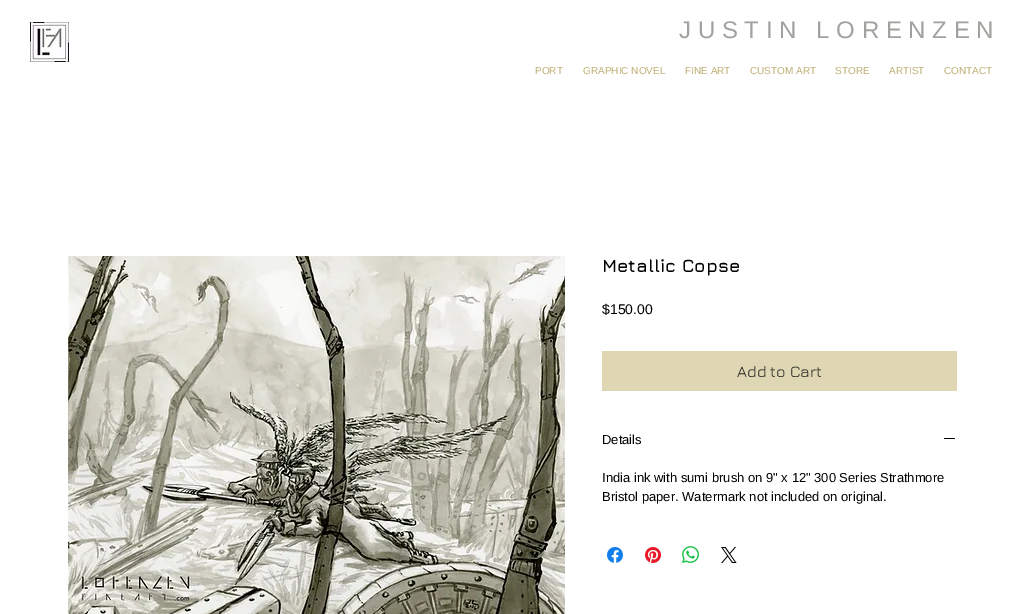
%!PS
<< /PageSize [1023 614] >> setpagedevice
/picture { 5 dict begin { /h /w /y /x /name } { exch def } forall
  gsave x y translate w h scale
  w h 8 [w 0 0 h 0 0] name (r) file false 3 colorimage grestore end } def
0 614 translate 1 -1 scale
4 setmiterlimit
1 setgray
0 0 1023 614 rectfill
(img1.rgb) 30 22 39 40 picture
/LiberationSans-Regular [24 0 0 -24 0 0] selectfont
0.631 0.631 0.616 setrgbcolor
679 38 moveto (J U S T I N   L O R E N Z E N) show
/LiberationSans-Regular [10 0 0 -10 0 0] selectfont
0.749 0.69 0.455 setrgbcolor
535 74 moveto (PORT) show
583 74 moveto (GRAPHIC NOVEL) show
685 74 moveto (FINE ART) show
750 74 moveto (CUSTOM ART) show
835 74 moveto (STORE) show
889 74 moveto (ARTIST) show
944 74 moveto (CONTACT) show
(img2.rgb) 68 256 497 358 picture
/Jura-Bold [18 0 0 -18 0 0] selectfont
0 setgray
602 272 moveto (Metallic Copse) show
/LiberationSans-Regular [14 0 0 -14 0 0] selectfont
602 314 moveto ($150.00) show
0.875 0.839 0.702 setrgbcolor
602 351 355 40 rectfill
/Jura-Regular [16 0 0 -16 0 0] selectfont
0.133 0.129 0.122 setrgbcolor
737 377 moveto (Add to Cart) show
/LiberationSans-Regular [13 0 0 -13 0 0] selectfont
0 setgray
602 444 moveto (Details) show
944 438 11 1 rectfill
602 482 moveto (India ink with sumi brush on 9" x 12" 300 Series Strathmore) show
602 501 moveto (Bristol paper. Watermark not included on original.) show
(img3.rgb) 607 547 16 16 picture
(img4.rgb) 645 547 16 16 picture
(img5.rgb) 682 546 17 17 picture
(img6.rgb) 721 547 16 16 picture
showpage
